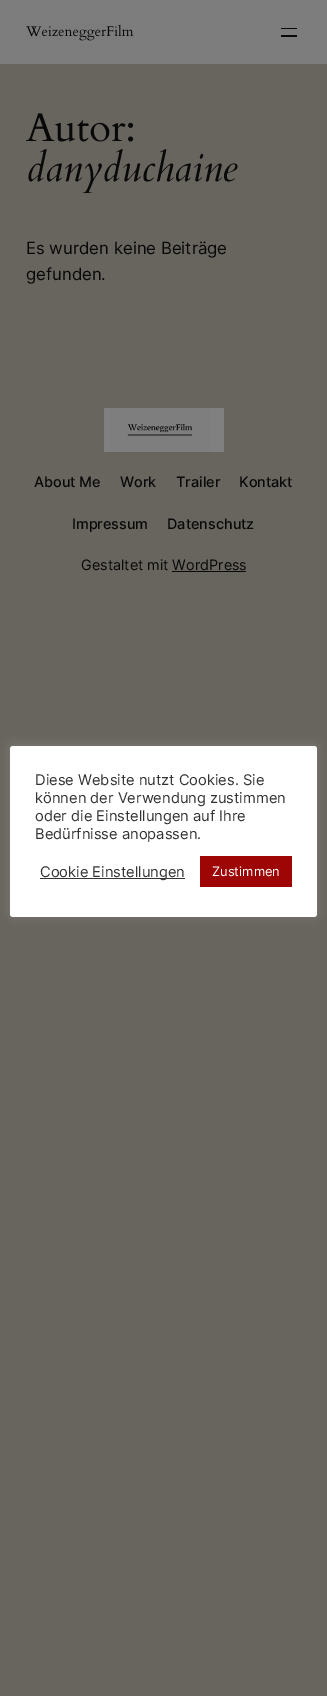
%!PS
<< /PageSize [327 1696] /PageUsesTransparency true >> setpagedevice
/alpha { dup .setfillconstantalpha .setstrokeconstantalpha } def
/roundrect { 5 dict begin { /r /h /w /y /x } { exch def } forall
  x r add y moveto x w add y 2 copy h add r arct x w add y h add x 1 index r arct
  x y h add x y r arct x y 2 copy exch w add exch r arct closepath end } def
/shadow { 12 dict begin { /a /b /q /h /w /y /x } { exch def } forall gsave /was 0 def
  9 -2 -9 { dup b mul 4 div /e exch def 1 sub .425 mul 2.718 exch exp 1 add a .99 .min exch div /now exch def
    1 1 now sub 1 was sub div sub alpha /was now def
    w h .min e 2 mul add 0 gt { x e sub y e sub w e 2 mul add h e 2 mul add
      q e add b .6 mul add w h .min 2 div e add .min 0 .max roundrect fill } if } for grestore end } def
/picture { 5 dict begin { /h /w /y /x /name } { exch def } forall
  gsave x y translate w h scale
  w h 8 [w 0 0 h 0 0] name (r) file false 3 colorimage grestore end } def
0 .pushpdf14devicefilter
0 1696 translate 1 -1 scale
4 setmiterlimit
0.408 0.396 0.373 setrgbcolor
0 0 327 1696 rectfill
0.49 setgray
0 0 327 64 rectfill
(img1.rgb) 26 24 108 17 picture
0.035 setgray
281 28 16 1 rectfill
281 35 16 2 rectfill
(img2.rgb) 26 113 108 29 picture
/Cardo-Italic [40 0 0 -40 0 0] selectfont
26 181 moveto (danyduchaine) show
/Inter-Regular [16.75 0 0 -16.75 0 0] selectfont
26 254 moveto (Es wurden keine Beiträge) show
26 280 moveto (gefunden.) show
(img3.rgb) 104 408 120 44 picture
/Inter-Medium [14.4 0 0 -14.4 0 0] selectfont
34 487 moveto (About Me) show
120 487 moveto (Work) show
176 487 moveto (Trailer) show
239 487 moveto (Kontakt) show
72 529 moveto (Impressum) show
167 529 moveto (Datenschutz) show
/Inter-Regular [14.4 0 0 -14.4 0 0] selectfont
81 570 moveto (Gestaltet mit WordPress) show
172 571 74 1 rectfill
0.675 0.671 0.671 setrgbcolor
10 745 307 171 3 5 0.3 shadow
1 setgray
10 746 307 171 3 roundrect fill
/Inter-Regular [14.7 0 0 -14.7 0 0] selectfont
0.2 setgray
35 785 moveto (Diese Website nutzt Cookies. Sie) show
35 803 moveto (können der Verwendung zustimmen) show
35 821 moveto (oder die Einstellungen auf Ihre) show
35 839 moveto (Bedürfnisse anopassen.) show
40 878 145 1 rectfill
40 877 moveto (Cookie Einstellungen) show
0.62 0.024 0.024 setrgbcolor
200 856 92 31 rectfill
/Inter-Regular [13 0 0 -13 0 0] selectfont
1 setgray
212 876 moveto (Zustimmen) show
.poppdf14devicefilter showpage
